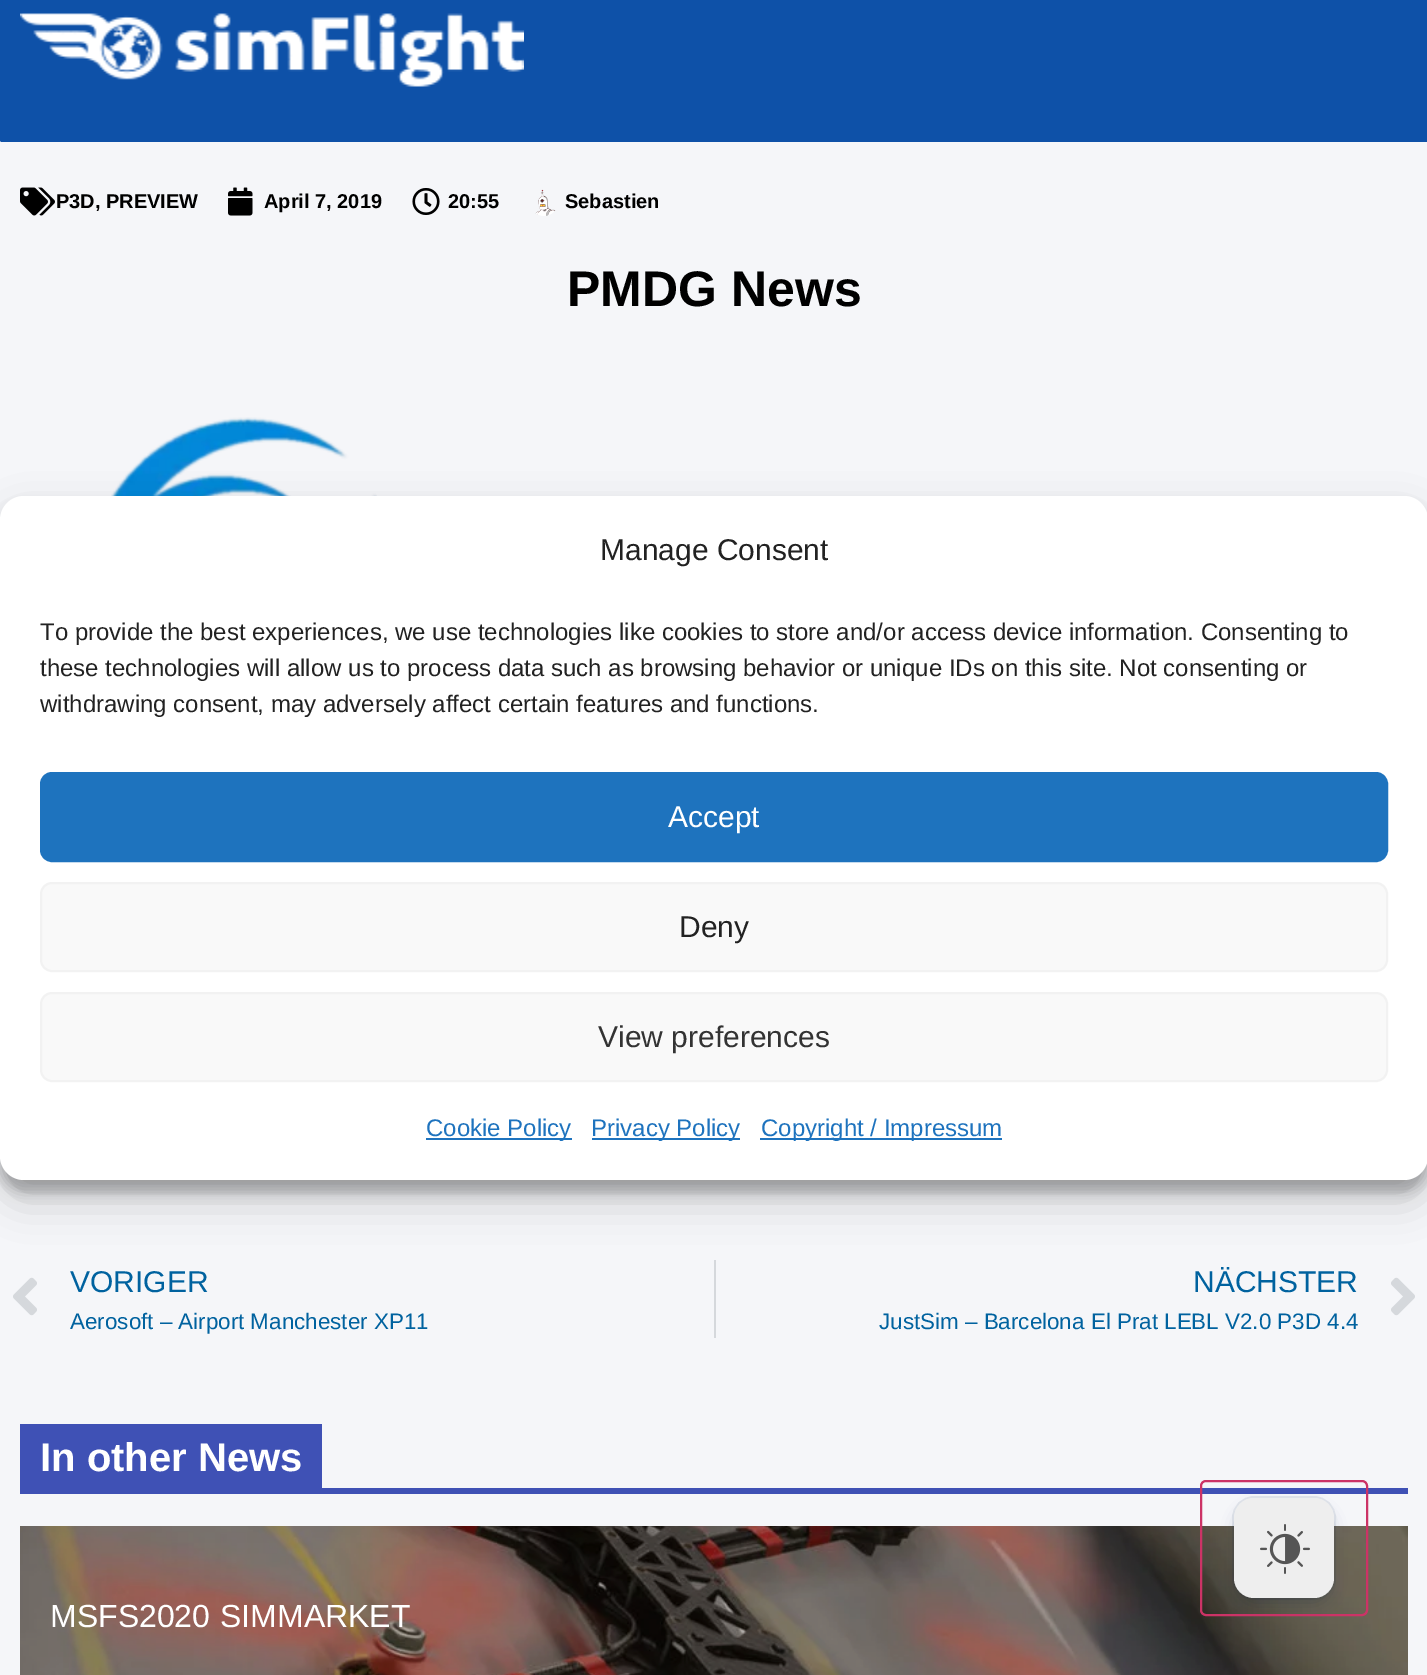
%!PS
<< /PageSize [1427 1675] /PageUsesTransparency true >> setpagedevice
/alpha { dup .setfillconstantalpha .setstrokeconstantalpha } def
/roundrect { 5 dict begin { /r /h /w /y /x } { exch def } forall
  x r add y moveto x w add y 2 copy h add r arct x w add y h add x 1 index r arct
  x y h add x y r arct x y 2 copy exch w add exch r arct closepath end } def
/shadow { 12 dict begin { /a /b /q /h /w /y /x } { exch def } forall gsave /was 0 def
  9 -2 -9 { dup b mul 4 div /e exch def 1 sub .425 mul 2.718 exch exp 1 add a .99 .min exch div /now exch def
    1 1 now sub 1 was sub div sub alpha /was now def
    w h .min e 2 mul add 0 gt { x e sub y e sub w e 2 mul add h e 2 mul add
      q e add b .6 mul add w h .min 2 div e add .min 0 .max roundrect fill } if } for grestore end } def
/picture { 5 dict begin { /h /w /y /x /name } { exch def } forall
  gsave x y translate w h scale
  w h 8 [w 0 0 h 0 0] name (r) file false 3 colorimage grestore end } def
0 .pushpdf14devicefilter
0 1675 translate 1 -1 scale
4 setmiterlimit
0.961 0.965 0.976 setrgbcolor
0 0 1427 1675 rectfill
0.055 0.318 0.659 setrgbcolor
0 -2 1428 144 2 roundrect fill
(img1.rgb) 20 13 504 74 picture
(img2.rgb) 20 187 35 29 picture
/LiberationSans-Bold [20 0 0 -20 0 0] selectfont
0 setgray
56 208 moveto (P3D, PREVIEW) show
(img3.rgb) 228 187 25 29 picture
264 208 moveto (April 7, 2019) show
(img4.rgb) 412 188 28 27 picture
448 208 moveto (20:55) show
(img5.rgb) 535 189 21 27 picture
565 208 moveto (Sebastien) show
/LiberationSans-Bold [50 0 0 -50 0 0] selectfont
567 306 moveto (PMDG News) show
(img6.rgb) 111 417 266 79 picture
(img7.rgb) 13 1277 24 39 picture
/LiberationSans-Regular [30 0 0 -30 0 0] selectfont
0 0.384 0.624 setrgbcolor
70 1292 moveto (VORIGER) show
/LiberationSans-Regular [22.4 0 0 -22.4 0 0] selectfont
70 1329 moveto (Aerosoft – Airport Manchester XP11) show
0.835 0.847 0.863 setrgbcolor
714 1260 2 78 rectfill
/LiberationSans-Regular [30 0 0 -30 0 0] selectfont
0 0.384 0.624 setrgbcolor
1193 1292 moveto (NÄCHSTER) show
/LiberationSans-Regular [22.4 0 0 -22.4 0 0] selectfont
879 1329 moveto (JustSim – Barcelona El Prat LEBL V2.0 P3D 4.4) show
(img8.rgb) 1391 1277 24 39 picture
0.247 0.318 0.71 setrgbcolor
20 1488 1388 6 rectfill
20 1424 302 64 rectfill
/LiberationSans-Bold [40 0 0 -40 0 0] selectfont
1 setgray
40 1471 moveto (In other News) show
(img9.rgb) 20 1526 1388 149 picture
/LiberationSans-Regular [32 0 0 -32 0 0] selectfont
50 1627 moveto (MSFS2020) show
220 1627 moveto (SIMMARKET) show
0 setgray
0 508 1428 684 24 6 0.23 shadow
0 516 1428 684 24 20 0.19 shadow
1 setgray
0 496 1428 684 24 roundrect fill
/LiberationSans-Regular [30 0 0 -30 0 0] selectfont
0.133 setgray
600 560 moveto (Manage Consent) show
/LiberationSans-Regular [24 0 0 -24 0 0] selectfont
40 640 moveto (To provide the best experiences, we use technologies like cookies to store and/or access device information. Consenting to) show
40 676 moveto (these technologies will allow us to process data such as browsing behavior or unique IDs on this site. Not consenting or) show
40 712 moveto (withdrawing consent, may adversely affect certain features and functions.) show
0.118 0.451 0.745 setrgbcolor
41 773 1346 88 11 roundrect gsave fill grestore
2 setlinewidth
stroke
/LiberationSans-Regular [30 0 0 -30 0 0] selectfont
1 setgray
668 827 moveto (Accept) show
0.976 setgray
41 883 1346 88 11 roundrect gsave fill grestore
0.949 setgray
stroke
0.133 setgray
679 937 moveto (Deny) show
0.976 setgray
41 993 1346 88 11 roundrect gsave fill grestore
0.949 setgray
stroke
0.2 setgray
598 1047 moveto (View preferences) show
0.118 0.451 0.745 setrgbcolor
426 1138 146 2 rectfill
/LiberationSans-Regular [24 0 0 -24 0 0] selectfont
426 1136 moveto (Cookie Policy) show
592 1138 148 2 rectfill
591 1136 moveto (Privacy Policy) show
760 1138 242 2 rectfill
761 1136 moveto (Copyright / Impressum) show
0.8 0.2 0.4 setrgbcolor
1201 1481 166 134 5 roundrect stroke
0.08 alpha
0.035 0.118 0.259 setrgbcolor
1233 1497 102 102 21 roundrect stroke
1 alpha
1238 1510 92 92 16 8 0.25 shadow
0.933 setgray
1234 1498 100 100 20 roundrect fill
(img10.rgb) 1260 1524 50 50 picture
.poppdf14devicefilter showpage
